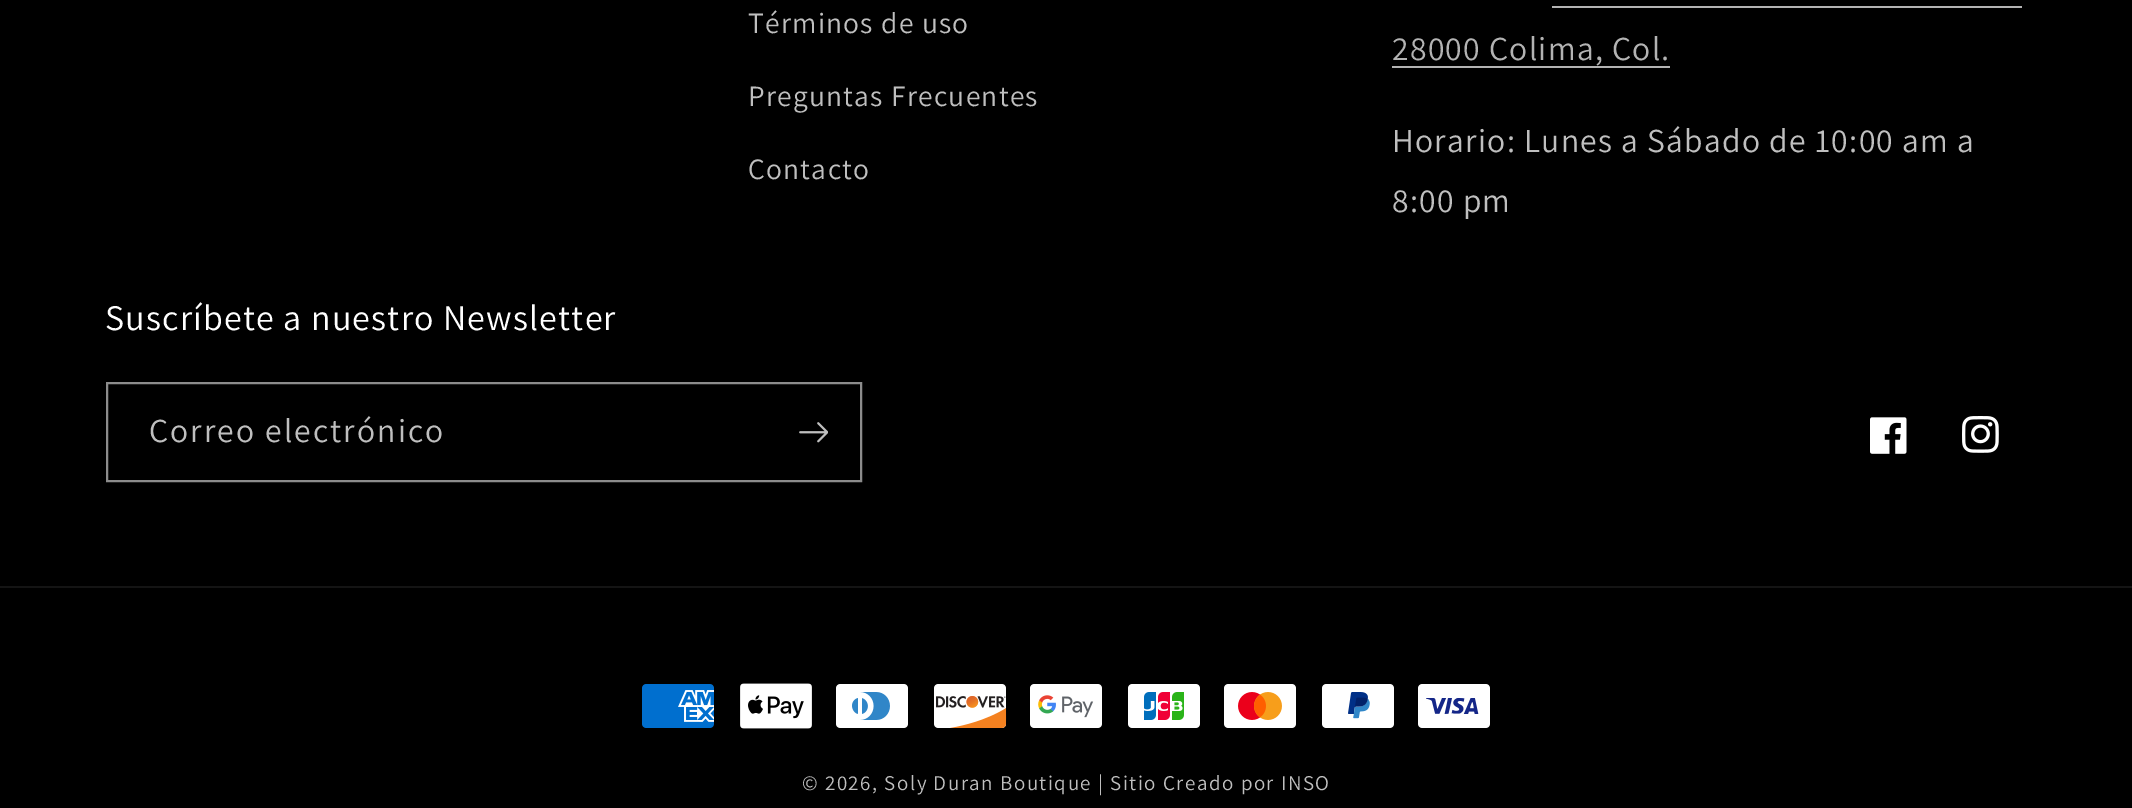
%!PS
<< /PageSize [2132 808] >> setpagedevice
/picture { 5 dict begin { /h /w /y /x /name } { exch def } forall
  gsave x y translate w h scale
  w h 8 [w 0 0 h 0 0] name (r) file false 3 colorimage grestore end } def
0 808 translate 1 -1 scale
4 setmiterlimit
0 setgray
0 0 2132 808 rectfill
/Assistant-Regular [29.5 0 0 -29.5 0 0] selectfont
0.749 setgray
748 33 moveto 1.25 0 (Términos de uso) ashow
748 106 moveto 1.25 0 (Preguntas Frecuentes) ashow
748 179 moveto 1.25 0 (Contacto) ashow
/Assistant-Regular [33.6 0 0 -33.6 0 0] selectfont
0.702 setgray
1392 60 moveto 1.25 0 (28000 Colima, Col.) ashow
1552 6 470 2 rectfill
1392 66 278 2 rectfill
0.749 setgray
1392 152 moveto 1.25 0 (Horario: Lunes a Sábado de 10:00 am a) ashow
1392 212 moveto 1.25 0 (8:00 pm) ashow
/Assistant-Regular [36 0 0 -36 0 0] selectfont
1 setgray
105 330 moveto 1.2 0 (Suscríbete a nuestro Newsletter) ashow
0.549 setgray
2 setlinewidth
107 383 754 98 rectstroke
/Assistant-Regular [33.6 0 0 -33.6 0 0] selectfont
0.749 setgray
149 442 moveto 2.1 0 (Correo electrónico) ashow
(img1.rgb) 799 422 29 21 picture
(img2.rgb) 1870 417 37 37 picture
(img3.rgb) 1962 416 37 37 picture
0.078 setgray
0 586 2132 2 rectfill
(img4.rgb) 642 684 72 44 picture
(img5.rgb) 740 683 72 46 picture
(img6.rgb) 836 684 72 44 picture
(img7.rgb) 934 684 73 44 picture
(img8.rgb) 1030 684 72 44 picture
(img9.rgb) 1128 684 72 44 picture
(img10.rgb) 1224 684 72 44 picture
(img11.rgb) 1322 684 72 44 picture
(img12.rgb) 1418 684 72 44 picture
/Assistant-Regular [21 0 0 -21 0 0] selectfont
0.749 setgray
802 790 moveto 1.5 0 (© 2026, Soly Duran Boutique) ashow
1098 790 moveto 1.5 0 (| Sitio Creado por INSO) ashow
showpage
